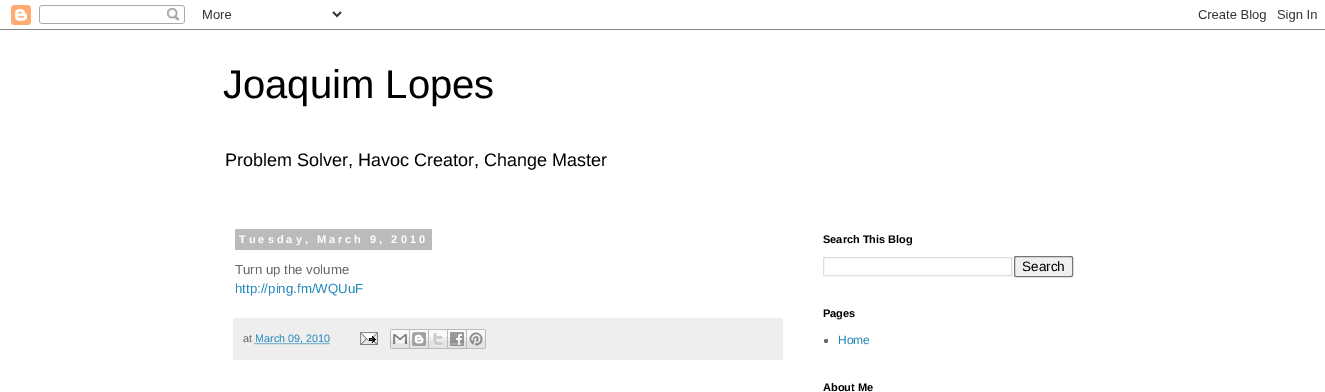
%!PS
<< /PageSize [1325 392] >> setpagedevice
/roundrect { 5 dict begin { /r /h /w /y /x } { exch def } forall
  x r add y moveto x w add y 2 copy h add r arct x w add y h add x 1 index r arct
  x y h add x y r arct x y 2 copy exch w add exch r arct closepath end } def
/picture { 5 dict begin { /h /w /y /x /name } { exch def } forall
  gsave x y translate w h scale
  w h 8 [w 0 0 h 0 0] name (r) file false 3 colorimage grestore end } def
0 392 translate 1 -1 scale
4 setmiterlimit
1 setgray
0 0 1325 392 rectfill
(img1.rgb) 0 5 1325 25 picture
/LiberationSans-Regular [40 0 0 -40 0 0] selectfont
0 setgray
223 98 moveto (Joaquim Lopes) show
/LiberationSans-Regular [18 0 0 -18 0 0] selectfont
225 166 moveto (Problem Solver, Havoc Creator, Change Master) show
0.733 setgray
235 229 197 21 rectfill
/LiberationSans-Bold [11 0 0 -11 0 0] selectfont
1 setgray
239 243 moveto 3 0 (Tuesday, March 9, 2010) ashow
/LiberationSans-Regular [13.25 0 0 -13.25 0 0] selectfont
0.4 setgray
235 274 moveto (Turn up the volume) show
0.133 0.533 0.733 setrgbcolor
235 293 moveto (http://ping.fm/WQUuF) show
0.933 setgray
233 318 550 42 rectfill
/LiberationSans-Regular [10.75 0 0 -10.75 0 0] selectfont
0.4 setgray
243 342 moveto (at) show
0.133 0.533 0.733 setrgbcolor
[1 1] 0 setdash
newpath 254.5 343.5 moveto 329.5 343.5 lineto stroke
255 342 moveto (March 09, 2010) show
(img2.rgb) 360 332 18 13 picture
(img3.rgb) 390 329 20 20 picture
(img4.rgb) 410 329 19 20 picture
(img5.rgb) 429 329 19 20 picture
(img6.rgb) 448 329 19 20 picture
(img7.rgb) 467 329 19 20 picture
/LiberationSans-Bold [11 0 0 -11 0 0] selectfont
0 setgray
823 243 moveto (Search This Blog) show
0.867 setgray
[] 0 setdash
823.5 257.5 188 18 rectstroke
0.937 setgray
1014.5 256.5 58 20 1.5 roundrect gsave fill grestore
0.463 setgray
stroke
/LiberationSans-Regular [13.5 0 0 -13.5 0 0] selectfont
0 setgray
1022 271 moveto (Search) show
/LiberationSans-Bold [11 0 0 -11 0 0] selectfont
823 317 moveto (Pages) show
0.4 setgray
newpath 826 341 2 0 360 arc closepath fill
/LiberationSans-Regular [12 0 0 -12 0 0] selectfont
0.133 0.533 0.733 setrgbcolor
838 344 moveto (Home) show
/LiberationSans-Bold [11 0 0 -11 0 0] selectfont
0 setgray
823 391 moveto (About Me) show
showpage
